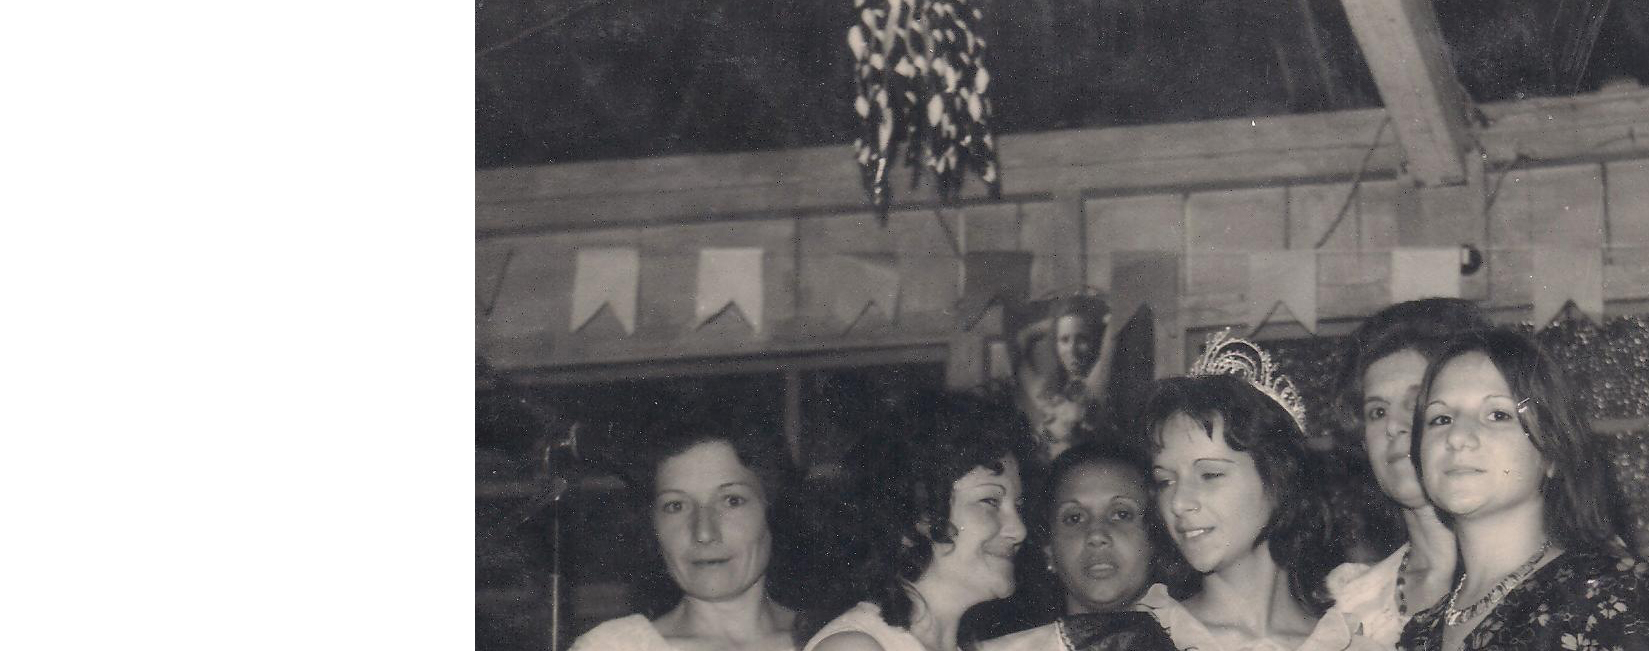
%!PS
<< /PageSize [1649 651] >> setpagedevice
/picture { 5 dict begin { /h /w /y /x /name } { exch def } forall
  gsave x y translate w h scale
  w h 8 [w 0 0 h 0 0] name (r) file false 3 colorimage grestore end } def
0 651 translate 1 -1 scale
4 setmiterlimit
1 setgray
0 0 1649 651 rectfill
(img1.rgb) 475 0 1174 651 picture
showpage
